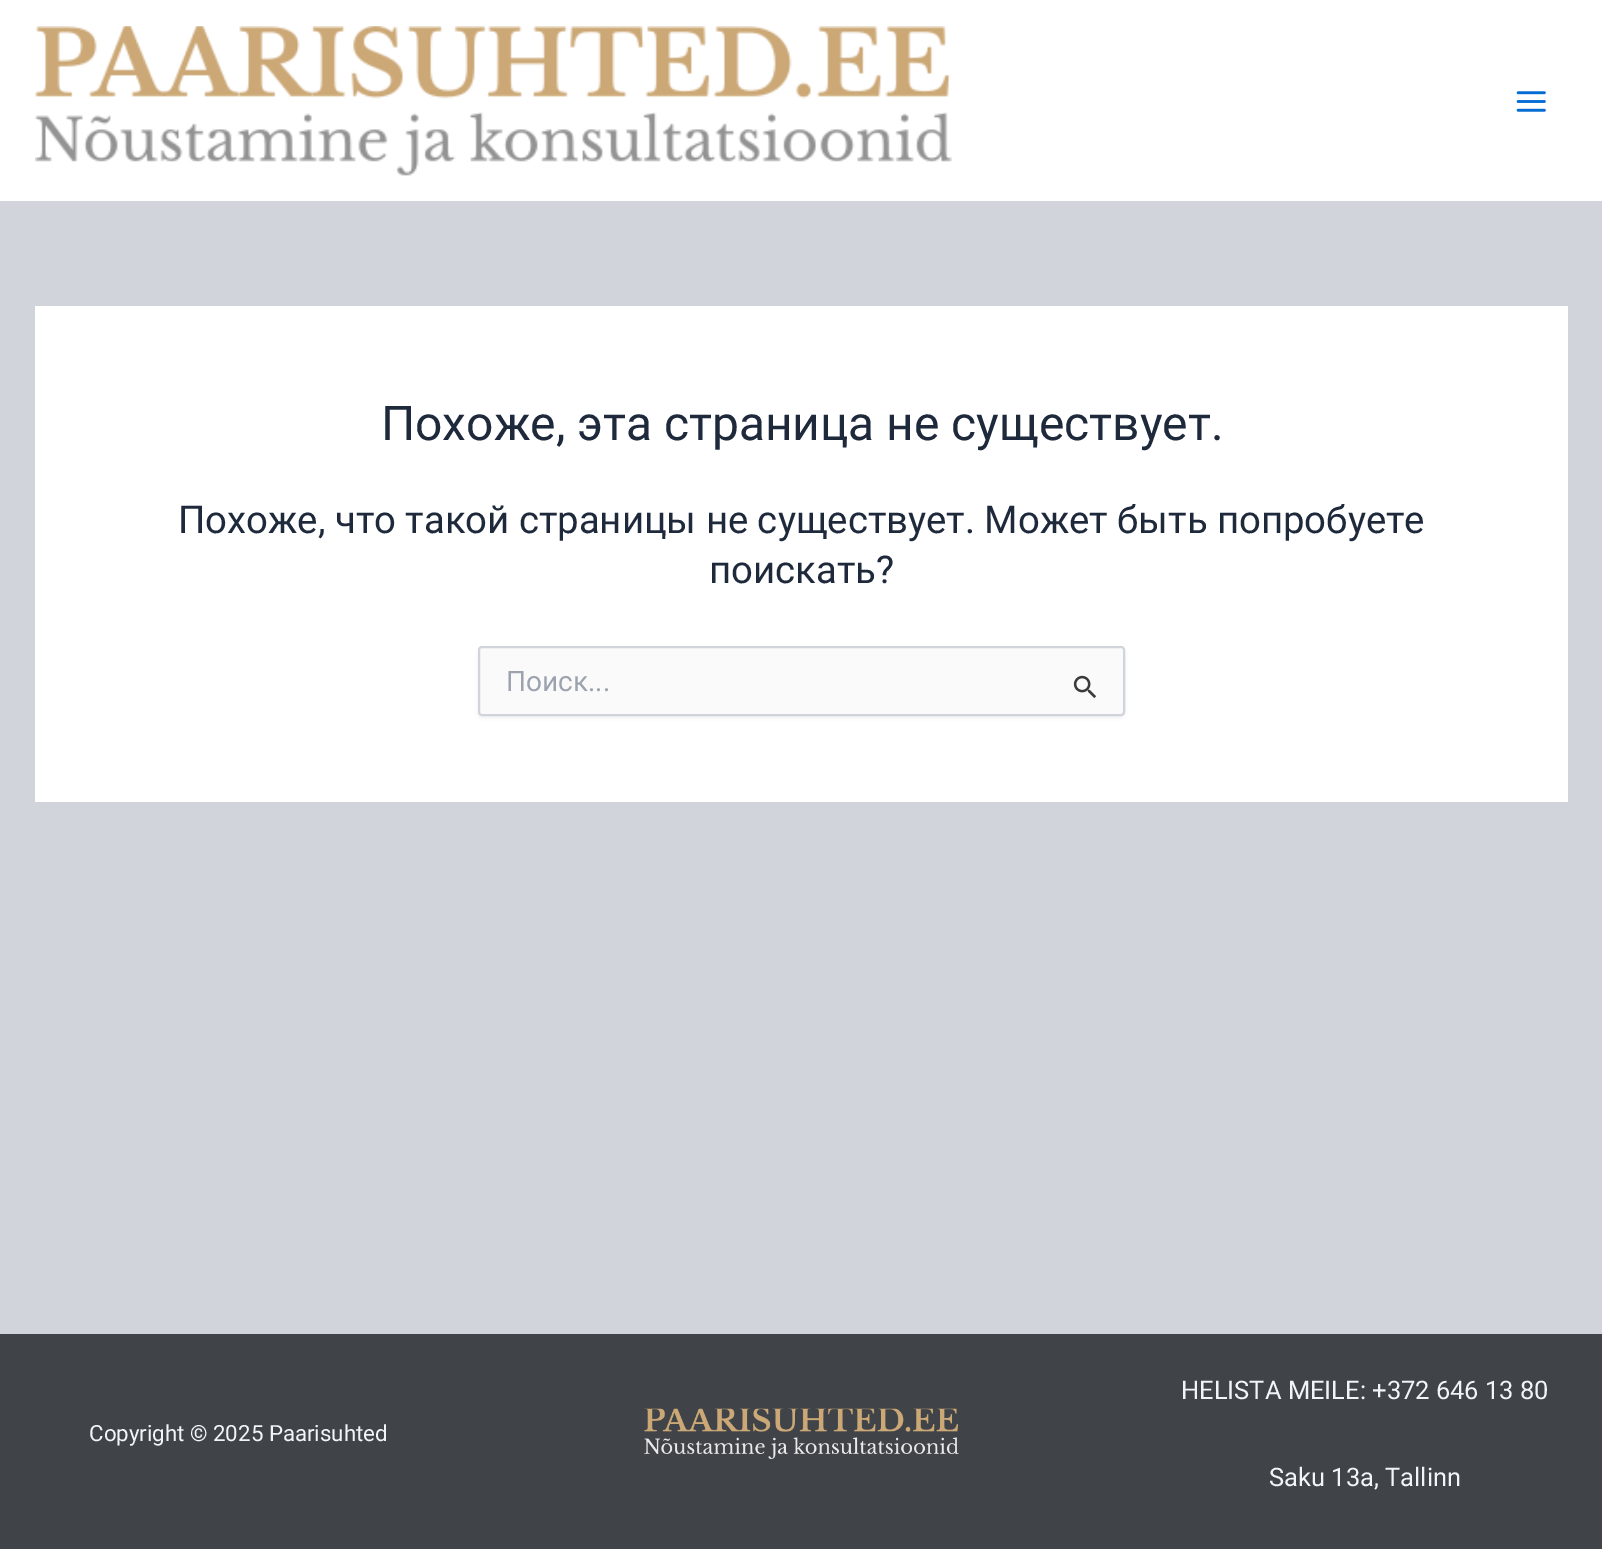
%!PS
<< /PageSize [1602 1549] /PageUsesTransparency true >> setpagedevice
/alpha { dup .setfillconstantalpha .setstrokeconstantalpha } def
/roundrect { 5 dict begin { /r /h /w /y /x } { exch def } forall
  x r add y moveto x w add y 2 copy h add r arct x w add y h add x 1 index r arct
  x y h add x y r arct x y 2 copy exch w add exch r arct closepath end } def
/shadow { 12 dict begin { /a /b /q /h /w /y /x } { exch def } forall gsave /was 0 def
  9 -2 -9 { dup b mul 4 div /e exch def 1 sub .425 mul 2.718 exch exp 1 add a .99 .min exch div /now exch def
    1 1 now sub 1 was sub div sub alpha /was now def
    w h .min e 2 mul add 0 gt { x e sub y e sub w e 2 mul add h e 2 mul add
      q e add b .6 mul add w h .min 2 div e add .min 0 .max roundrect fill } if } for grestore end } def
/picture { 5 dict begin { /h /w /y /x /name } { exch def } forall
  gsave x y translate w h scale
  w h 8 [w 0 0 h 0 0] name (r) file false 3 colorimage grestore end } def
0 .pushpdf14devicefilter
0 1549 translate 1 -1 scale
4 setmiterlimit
0.82 0.835 0.859 setrgbcolor
0 0 1602 1549 rectfill
1 setgray
0 0 1602 201 rectfill
(img1.rgb) 35 26 917 151 picture
(img2.rgb) 1516 91 30 21 picture
35 306 1533 496 rectfill
/Roboto-Regular [47.9 0 0 -47.9 0 0] selectfont
0.118 0.161 0.231 setrgbcolor
381 440 moveto (Похоже, эта страница не существует.) show
/Roboto-Regular [38.3 0 0 -38.3 0 0] selectfont
178 533 moveto (Похоже, что такой страницы не существует. Может быть попробуете) show
709 583 moveto (поискать?) show
0 setgray
478 648 647 70 4 2 0.05 shadow
0.98 setgray
479 647 645 68 3 roundrect gsave fill grestore
0.82 0.835 0.859 setrgbcolor
2 setlinewidth
stroke
/Roboto-Regular [28 0 0 -28 0 0] selectfont
0.612 0.639 0.686 setrgbcolor
506 691 moveto (Поиск...) show
(img3.rgb) 1073 675 23 24 picture
0.251 0.267 0.286 setrgbcolor
0 1334 1602 215 rectfill
/Roboto-Regular [22.3 0 0 -22.3 0 0] selectfont
0.941 0.961 0.98 setrgbcolor
89 1441 moveto (Copyright © 2025 Paarisuhted) show
(img4.rgb) 644 1408 315 51 picture
/Roboto-Regular [25.5 0 0 -25.5 0 0] selectfont
1181 1399 moveto (HELISTA MEILE: +372 646 13 80) show
1269 1486 moveto (Saku 13a, Tallinn) show
.poppdf14devicefilter showpage
